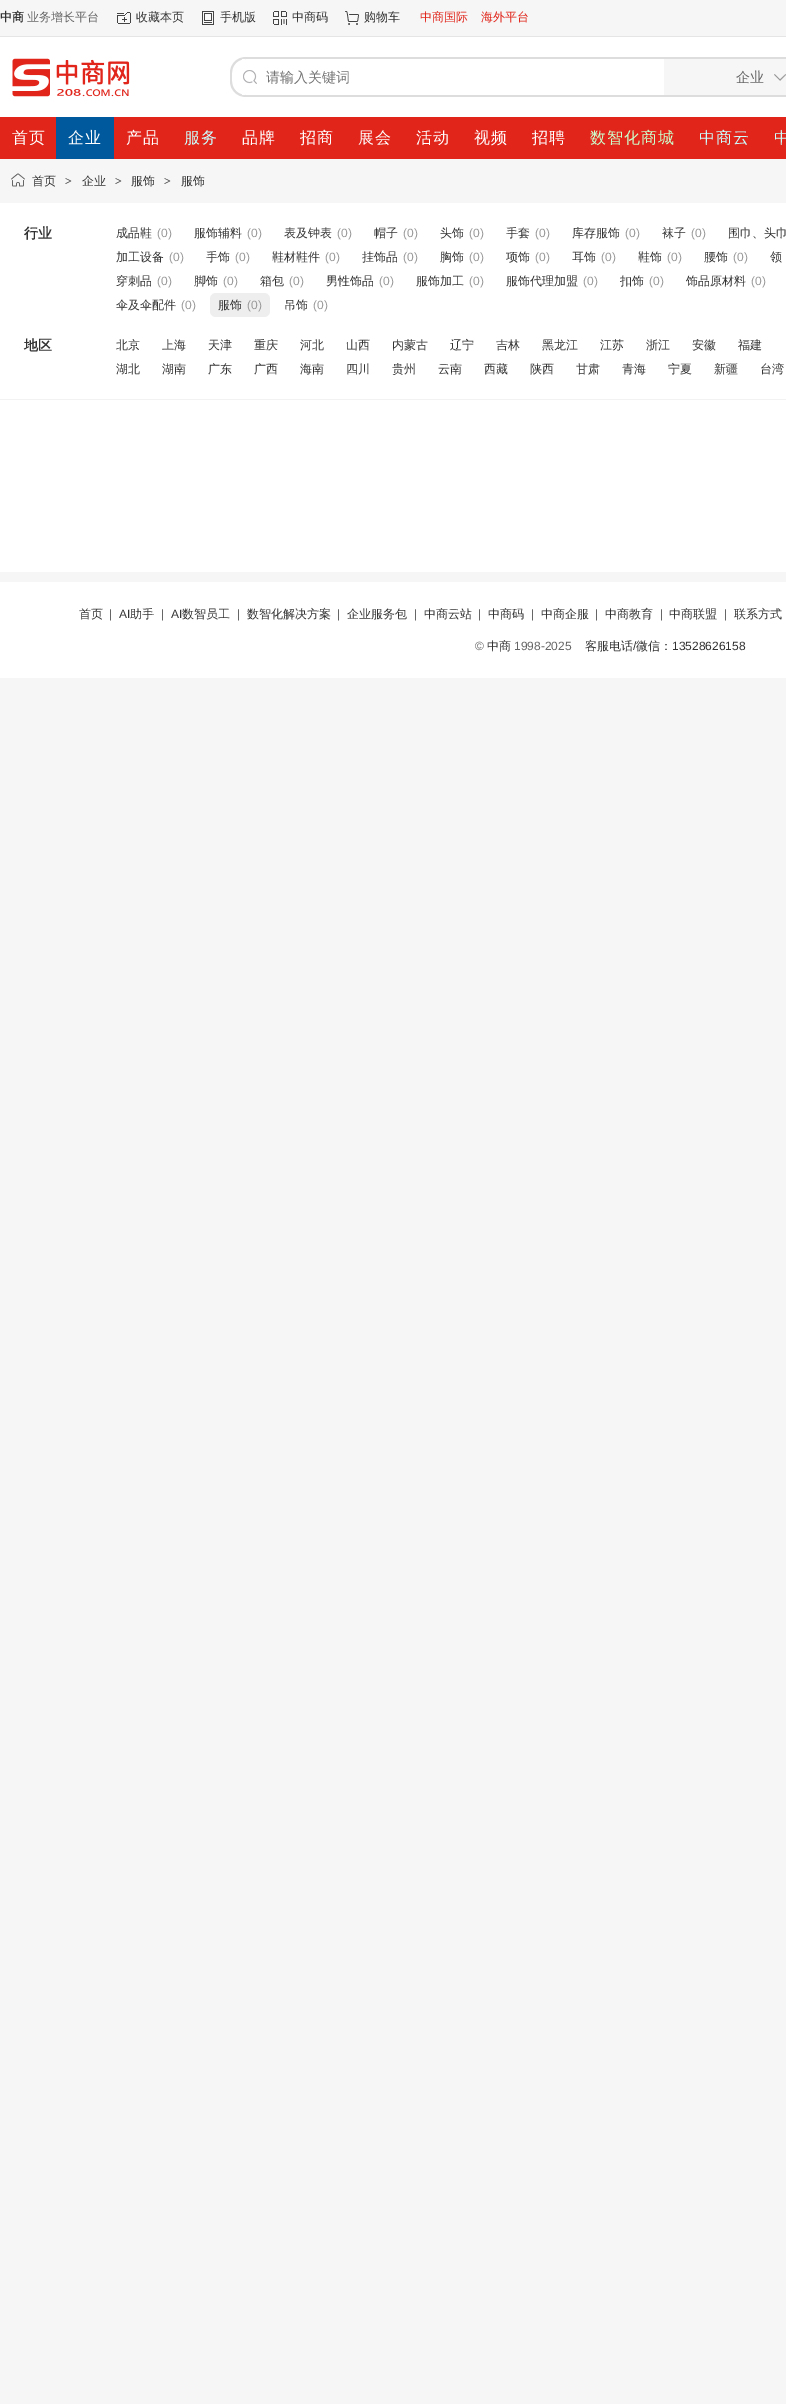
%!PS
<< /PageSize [786 2404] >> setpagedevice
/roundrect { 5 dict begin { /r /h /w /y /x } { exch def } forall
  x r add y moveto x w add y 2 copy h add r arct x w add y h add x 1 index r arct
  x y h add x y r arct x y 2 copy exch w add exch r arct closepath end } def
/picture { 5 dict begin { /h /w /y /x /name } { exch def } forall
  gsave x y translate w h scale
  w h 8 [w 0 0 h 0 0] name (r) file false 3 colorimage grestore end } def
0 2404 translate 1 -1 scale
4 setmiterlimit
0.965 setgray
0 0 786 2404 rectfill
0.898 setgray
0 36 786 1 rectfill
/WenQuanYiZenHei-Bold [12 0 0 -12 0 0] selectfont
0.2 setgray
0 21 moveto (中商) show
/WenQuanYiZenHei-Medium [12 0 0 -12 0 0] selectfont
0.4 setgray
27 21 moveto (业务增长平台) show
(img1.rgb) 117 12 14 12 picture
0.2 setgray
136 21 moveto (收藏本页) show
(img2.rgb) 202 11 12 14 picture
220 21 moveto (手机版) show
(img3.rgb) 273 11 14 14 picture
292 21 moveto (中商码) show
(img4.rgb) 345 11 14 14 picture
364 21 moveto (购物车) show
0.882 0.145 0.106 setrgbcolor
420 21 moveto (中商国际) show
481 21 moveto (海外平台) show
1 setgray
0 37 786 80 rectfill
(img5.rgb) 12 58 118 39 picture
0.867 setgray
newpath 246 57 moveto 664 57 lineto 664 97 lineto 246 97 lineto 237 97 230 90 230 81 curveto 230 73 lineto 230 64 237 57 246 57 curveto closepath 246 59 moveto 664 59 lineto 664 95 lineto 246 95 lineto 238 95 232 89 232 81 curveto 232 73 lineto 232 65 238 59 246 59 curveto closepath eofill
1 setgray
242 59 3 36 rectfill
(img6.rgb) 243 70 14 14 picture
/WenQuanYiZenHei-Medium [14 0 0 -14 0 0] selectfont
0.459 setgray
266 82 moveto (请输入关键词) show
0.965 setgray
664 59 122 36 rectfill
0.867 setgray
664 57 122 2 rectfill
664 95 122 2 rectfill
(img7.rgb) 774 74 12 7 picture
0.4 setgray
736 82 moveto (企业) show
0.882 0.145 0.106 setrgbcolor
0 117 786 42 rectfill
/WenQuanYiZenHei-Medium [16 0 0 -16 0 0] selectfont
1 setgray
12 143 moveto 1 0 (首页) ashow
0 0.349 0.612 setrgbcolor
56 117 58 42 rectfill
1 setgray
68 143 moveto 1 0 (企业) ashow
126 143 moveto 1 0 (产品) ashow
0.8 1 1 setrgbcolor
184 143 moveto 1 0 (服务) ashow
1 setgray
242 143 moveto 1 0 (品牌) ashow
300 143 moveto 1 0 (招商) ashow
358 143 moveto 1 0 (展会) ashow
416 143 moveto 1 0 (活动) ashow
474 143 moveto 1 0 (视频) ashow
532 143 moveto 1 0 (招聘) ashow
0.8 1 0.8 setrgbcolor
590 143 moveto 1 0 (数智化商城) ashow
0.8 1 1 setrgbcolor
699 143 moveto 1 0 (中商云) ashow
774 143 moveto 1 0 (中) ashow
(img8.rgb) 11 173 14 14 picture
/WenQuanYiZenHei-Medium [12 0 0 -12 0 0] selectfont
0.2 setgray
32 185 moveto (首页) show
/LiberationSerif-Bold [12 0 0 -12 0 0] selectfont
0.267 setgray
65 185 moveto (>) show
/WenQuanYiZenHei-Medium [12 0 0 -12 0 0] selectfont
0.2 setgray
82 185 moveto (企业) show
/LiberationSerif-Bold [12 0 0 -12 0 0] selectfont
0.267 setgray
115 185 moveto (>) show
/WenQuanYiZenHei-Medium [12 0 0 -12 0 0] selectfont
0.2 setgray
131 185 moveto (服饰) show
/LiberationSerif-Bold [12 0 0 -12 0 0] selectfont
0.267 setgray
164 185 moveto (>) show
/WenQuanYiZenHei-Medium [12 0 0 -12 0 0] selectfont
0.2 setgray
181 185 moveto (服饰) show
1 setgray
0 203 786 369 rectfill
0.949 setgray
0 399 786 1 rectfill
/WenQuanYiZenHei-Bold [14 0 0 -14 0 0] selectfont
0.2 setgray
24 238 moveto (行业) show
/WenQuanYiZenHei-Medium [12 0 0 -12 0 0] selectfont
116 237 moveto (成品鞋) show
/LiberationSans-Regular [12 0 0 -12 0 0] selectfont
0.6 setgray
157 237 moveto (\(0\)) show
/WenQuanYiZenHei-Medium [12 0 0 -12 0 0] selectfont
0.2 setgray
194 237 moveto (服饰辅料) show
/LiberationSans-Regular [12 0 0 -12 0 0] selectfont
0.6 setgray
247 237 moveto (\(0\)) show
/WenQuanYiZenHei-Medium [12 0 0 -12 0 0] selectfont
0.2 setgray
284 237 moveto (表及钟表) show
/LiberationSans-Regular [12 0 0 -12 0 0] selectfont
0.6 setgray
337 237 moveto (\(0\)) show
/WenQuanYiZenHei-Medium [12 0 0 -12 0 0] selectfont
0.2 setgray
374 237 moveto (帽子) show
/LiberationSans-Regular [12 0 0 -12 0 0] selectfont
0.6 setgray
403 237 moveto (\(0\)) show
/WenQuanYiZenHei-Medium [12 0 0 -12 0 0] selectfont
0.2 setgray
440 237 moveto (头饰) show
/LiberationSans-Regular [12 0 0 -12 0 0] selectfont
0.6 setgray
469 237 moveto (\(0\)) show
/WenQuanYiZenHei-Medium [12 0 0 -12 0 0] selectfont
0.2 setgray
506 237 moveto (手套) show
/LiberationSans-Regular [12 0 0 -12 0 0] selectfont
0.6 setgray
535 237 moveto (\(0\)) show
/WenQuanYiZenHei-Medium [12 0 0 -12 0 0] selectfont
0.2 setgray
572 237 moveto (库存服饰) show
/LiberationSans-Regular [12 0 0 -12 0 0] selectfont
0.6 setgray
625 237 moveto (\(0\)) show
/WenQuanYiZenHei-Medium [12 0 0 -12 0 0] selectfont
0.2 setgray
662 237 moveto (袜子) show
/LiberationSans-Regular [12 0 0 -12 0 0] selectfont
0.6 setgray
691 237 moveto (\(0\)) show
/WenQuanYiZenHei-Medium [12 0 0 -12 0 0] selectfont
0.2 setgray
728 237 moveto (围巾、头巾) show
116 261 moveto (加工设备) show
/LiberationSans-Regular [12 0 0 -12 0 0] selectfont
0.6 setgray
169 261 moveto (\(0\)) show
/WenQuanYiZenHei-Medium [12 0 0 -12 0 0] selectfont
0.2 setgray
206 261 moveto (手饰) show
/LiberationSans-Regular [12 0 0 -12 0 0] selectfont
0.6 setgray
235 261 moveto (\(0\)) show
/WenQuanYiZenHei-Medium [12 0 0 -12 0 0] selectfont
0.2 setgray
272 261 moveto (鞋材鞋件) show
/LiberationSans-Regular [12 0 0 -12 0 0] selectfont
0.6 setgray
325 261 moveto (\(0\)) show
/WenQuanYiZenHei-Medium [12 0 0 -12 0 0] selectfont
0.2 setgray
362 261 moveto (挂饰品) show
/LiberationSans-Regular [12 0 0 -12 0 0] selectfont
0.6 setgray
403 261 moveto (\(0\)) show
/WenQuanYiZenHei-Medium [12 0 0 -12 0 0] selectfont
0.2 setgray
440 261 moveto (胸饰) show
/LiberationSans-Regular [12 0 0 -12 0 0] selectfont
0.6 setgray
469 261 moveto (\(0\)) show
/WenQuanYiZenHei-Medium [12 0 0 -12 0 0] selectfont
0.2 setgray
506 261 moveto (项饰) show
/LiberationSans-Regular [12 0 0 -12 0 0] selectfont
0.6 setgray
535 261 moveto (\(0\)) show
/WenQuanYiZenHei-Medium [12 0 0 -12 0 0] selectfont
0.2 setgray
572 261 moveto (耳饰) show
/LiberationSans-Regular [12 0 0 -12 0 0] selectfont
0.6 setgray
601 261 moveto (\(0\)) show
/WenQuanYiZenHei-Medium [12 0 0 -12 0 0] selectfont
0.2 setgray
638 261 moveto (鞋饰) show
/LiberationSans-Regular [12 0 0 -12 0 0] selectfont
0.6 setgray
667 261 moveto (\(0\)) show
/WenQuanYiZenHei-Medium [12 0 0 -12 0 0] selectfont
0.2 setgray
704 261 moveto (腰饰) show
/LiberationSans-Regular [12 0 0 -12 0 0] selectfont
0.6 setgray
733 261 moveto (\(0\)) show
/WenQuanYiZenHei-Medium [12 0 0 -12 0 0] selectfont
0.2 setgray
770 261 moveto (领) show
116 285 moveto (穿刺品) show
/LiberationSans-Regular [12 0 0 -12 0 0] selectfont
0.6 setgray
157 285 moveto (\(0\)) show
/WenQuanYiZenHei-Medium [12 0 0 -12 0 0] selectfont
0.2 setgray
194 285 moveto (脚饰) show
/LiberationSans-Regular [12 0 0 -12 0 0] selectfont
0.6 setgray
223 285 moveto (\(0\)) show
/WenQuanYiZenHei-Medium [12 0 0 -12 0 0] selectfont
0.2 setgray
260 285 moveto (箱包) show
/LiberationSans-Regular [12 0 0 -12 0 0] selectfont
0.6 setgray
289 285 moveto (\(0\)) show
/WenQuanYiZenHei-Medium [12 0 0 -12 0 0] selectfont
0.2 setgray
326 285 moveto (男性饰品) show
/LiberationSans-Regular [12 0 0 -12 0 0] selectfont
0.6 setgray
379 285 moveto (\(0\)) show
/WenQuanYiZenHei-Medium [12 0 0 -12 0 0] selectfont
0.2 setgray
416 285 moveto (服饰加工) show
/LiberationSans-Regular [12 0 0 -12 0 0] selectfont
0.6 setgray
469 285 moveto (\(0\)) show
/WenQuanYiZenHei-Medium [12 0 0 -12 0 0] selectfont
0.2 setgray
506 285 moveto (服饰代理加盟) show
/LiberationSans-Regular [12 0 0 -12 0 0] selectfont
0.6 setgray
583 285 moveto (\(0\)) show
/WenQuanYiZenHei-Medium [12 0 0 -12 0 0] selectfont
0.2 setgray
620 285 moveto (扣饰) show
/LiberationSans-Regular [12 0 0 -12 0 0] selectfont
0.6 setgray
649 285 moveto (\(0\)) show
/WenQuanYiZenHei-Medium [12 0 0 -12 0 0] selectfont
0.2 setgray
686 285 moveto (饰品原材料) show
/LiberationSans-Regular [12 0 0 -12 0 0] selectfont
0.6 setgray
751 285 moveto (\(0\)) show
/WenQuanYiZenHei-Medium [12 0 0 -12 0 0] selectfont
0.2 setgray
116 309 moveto (伞及伞配件) show
/LiberationSans-Regular [12 0 0 -12 0 0] selectfont
0.6 setgray
181 309 moveto (\(0\)) show
0.933 setgray
210 293 60 24 6 roundrect fill
/WenQuanYiZenHei-Medium [12 0 0 -12 0 0] selectfont
0.2 setgray
218 309 moveto (服饰) show
/LiberationSans-Regular [12 0 0 -12 0 0] selectfont
0.6 setgray
247 309 moveto (\(0\)) show
/WenQuanYiZenHei-Medium [12 0 0 -12 0 0] selectfont
0.2 setgray
284 309 moveto (吊饰) show
/LiberationSans-Regular [12 0 0 -12 0 0] selectfont
0.6 setgray
313 309 moveto (\(0\)) show
/WenQuanYiZenHei-Bold [14 0 0 -14 0 0] selectfont
0.2 setgray
24 350 moveto (地区) show
/WenQuanYiZenHei-Medium [12 0 0 -12 0 0] selectfont
116 349 moveto (北京) show
162 349 moveto (上海) show
208 349 moveto (天津) show
254 349 moveto (重庆) show
300 349 moveto (河北) show
346 349 moveto (山西) show
392 349 moveto (内蒙古) show
450 349 moveto (辽宁) show
496 349 moveto (吉林) show
542 349 moveto (黑龙江) show
600 349 moveto (江苏) show
646 349 moveto (浙江) show
692 349 moveto (安徽) show
738 349 moveto (福建) show
116 373 moveto (湖北) show
162 373 moveto (湖南) show
208 373 moveto (广东) show
254 373 moveto (广西) show
300 373 moveto (海南) show
346 373 moveto (四川) show
392 373 moveto (贵州) show
438 373 moveto (云南) show
484 373 moveto (西藏) show
530 373 moveto (陕西) show
576 373 moveto (甘肃) show
622 373 moveto (青海) show
668 373 moveto (宁夏) show
714 373 moveto (新疆) show
760 373 moveto (台湾) show
1 setgray
0 582 786 96 rectfill
0.2 setgray
79 618 moveto (首页) show
/LiberationSans-Regular [12 0 0 -12 0 0] selectfont
0.4 setgray
109 618 moveto (|) show
0.2 setgray
119 618 moveto (AI) show
/WenQuanYiZenHei-Medium [12 0 0 -12 0 0] selectfont
130 618 moveto (助手) show
/LiberationSans-Regular [12 0 0 -12 0 0] selectfont
0.4 setgray
161 618 moveto (|) show
0.2 setgray
171 618 moveto (AI) show
/WenQuanYiZenHei-Medium [12 0 0 -12 0 0] selectfont
182 618 moveto (数智员工) show
/LiberationSans-Regular [12 0 0 -12 0 0] selectfont
0.4 setgray
237 618 moveto (|) show
/WenQuanYiZenHei-Medium [12 0 0 -12 0 0] selectfont
0.2 setgray
247 618 moveto (数智化解决方案) show
/LiberationSans-Regular [12 0 0 -12 0 0] selectfont
0.4 setgray
337 618 moveto (|) show
/WenQuanYiZenHei-Medium [12 0 0 -12 0 0] selectfont
0.2 setgray
347 618 moveto (企业服务包) show
/LiberationSans-Regular [12 0 0 -12 0 0] selectfont
0.4 setgray
414 618 moveto (|) show
/WenQuanYiZenHei-Medium [12 0 0 -12 0 0] selectfont
0.2 setgray
424 618 moveto (中商云站) show
/LiberationSans-Regular [12 0 0 -12 0 0] selectfont
0.4 setgray
478 618 moveto (|) show
/WenQuanYiZenHei-Medium [12 0 0 -12 0 0] selectfont
0.2 setgray
488 618 moveto (中商码) show
/LiberationSans-Regular [12 0 0 -12 0 0] selectfont
0.4 setgray
531 618 moveto (|) show
/WenQuanYiZenHei-Medium [12 0 0 -12 0 0] selectfont
0.2 setgray
541 618 moveto (中商企服) show
/LiberationSans-Regular [12 0 0 -12 0 0] selectfont
0.4 setgray
595 618 moveto (|) show
/WenQuanYiZenHei-Medium [12 0 0 -12 0 0] selectfont
0.2 setgray
605 618 moveto (中商教育) show
/LiberationSans-Regular [12 0 0 -12 0 0] selectfont
0.4 setgray
660 618 moveto (|) show
/WenQuanYiZenHei-Medium [12 0 0 -12 0 0] selectfont
0.2 setgray
669 618 moveto (中商联盟) show
/LiberationSans-Regular [12 0 0 -12 0 0] selectfont
0.4 setgray
724 618 moveto (|) show
/WenQuanYiZenHei-Medium [12 0 0 -12 0 0] selectfont
0.2 setgray
734 618 moveto (联系方式) show
/LiberationSans-Regular [12 0 0 -12 0 0] selectfont
0.4 setgray
475 650 moveto (©) show
/WenQuanYiZenHei-Medium [12 0 0 -12 0 0] selectfont
0.2 setgray
487 650 moveto (中商) show
/LiberationSans-Regular [12 0 0 -12 0 0] selectfont
0.4 setgray
514 650 moveto (1998-2025) show
/WenQuanYiZenHei-Medium [12 0 0 -12 0 0] selectfont
0.2 setgray
585 650 moveto (客服电话) show
/LiberationSans-Regular [12 0 0 -12 0 0] selectfont
633 650 moveto (/) show
/WenQuanYiZenHei-Medium [12 0 0 -12 0 0] selectfont
636 650 moveto (微信：) show
/LiberationSans-Regular [12 0 0 -12 0 0] selectfont
672 650 moveto (13528626158) show
showpage
